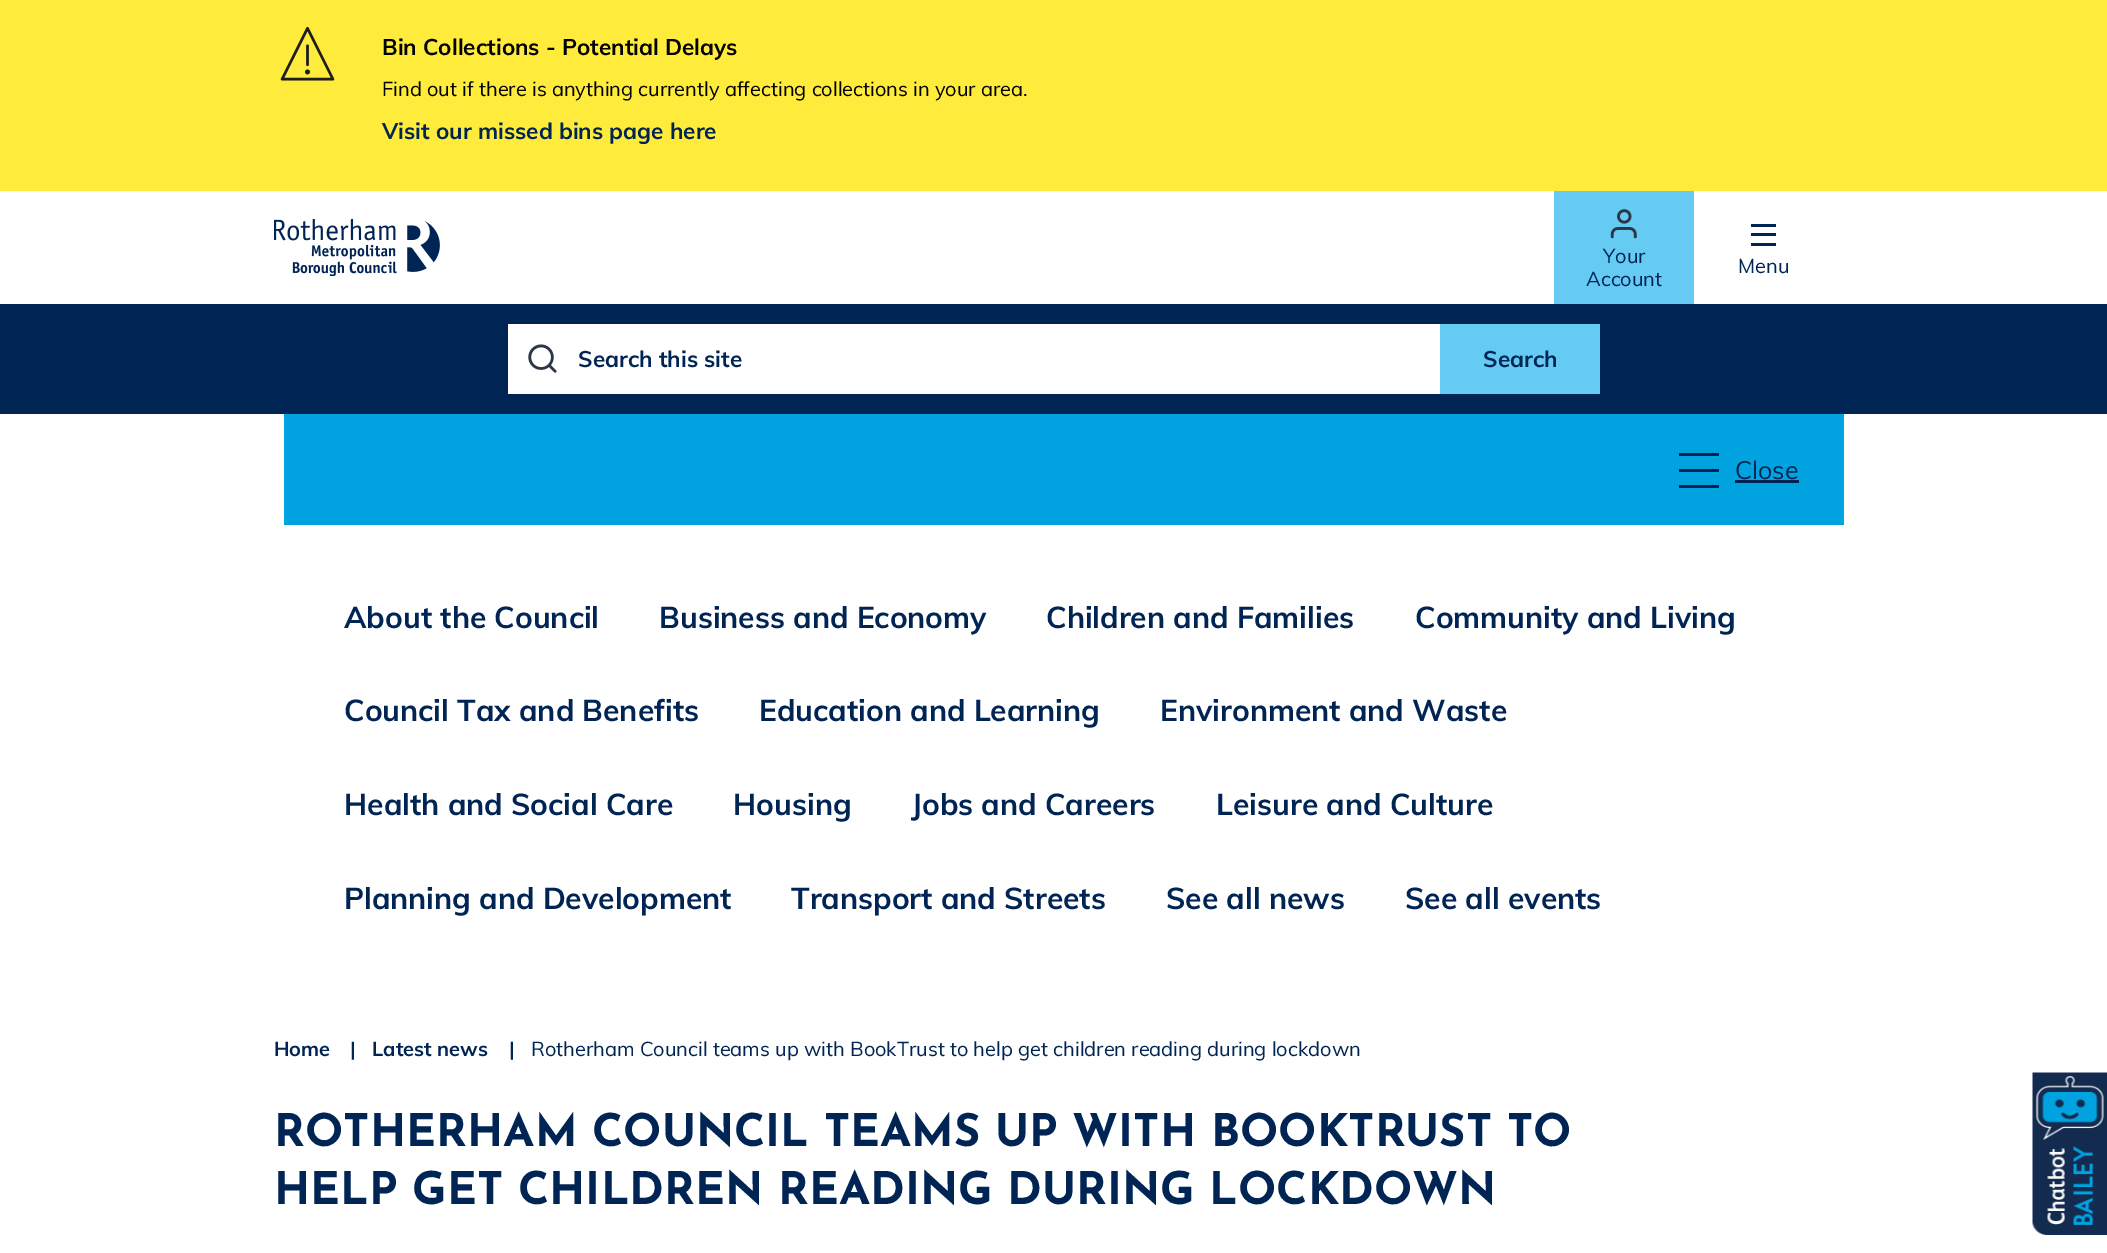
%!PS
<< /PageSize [2107 1253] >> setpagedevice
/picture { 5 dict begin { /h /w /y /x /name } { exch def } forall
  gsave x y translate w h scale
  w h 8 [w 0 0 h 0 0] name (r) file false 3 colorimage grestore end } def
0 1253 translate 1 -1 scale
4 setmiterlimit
1 setgray
0 0 2107 1253 rectfill
1 0.922 0.231 setrgbcolor
0 0 2107 191 rectfill
(img1.rgb) 280 26 55 55 picture
/Muli-Bold [22.5 0 0 -22.5 0 0] selectfont
0 setgray
382 55 moveto (Bin Collections - Potential Delays) show
/Muli-Regular [20 0 0 -20 0 0] selectfont
382 96 moveto (Find out if there is anything currently affecting collections in your area.) show
/Muli-Bold [22.5 0 0 -22.5 0 0] selectfont
0 0.145 0.329 setrgbcolor
382 139 moveto (Visit our missed bins page here) show
(img2.rgb) 274 219 166 57 picture
0.4 0.796 0.953 setrgbcolor
1554 191 140 113 rectfill
(img3.rgb) 1610 209 27 30 picture
/Muli-Regular [20 0 0 -20 0 0] selectfont
0 0.145 0.329 setrgbcolor
1603 263 moveto (Your) show
1586 286 moveto (Account) show
1751 224 25 3 rectfill
1751 233 25 3 rectfill
1751 243 25 3 rectfill
1738 273 moveto (Menu) show
0 304 2107 110 rectfill
1 setgray
508 324 932 70 rectfill
(img4.rgb) 528 344 29 29 picture
/Muli-Bold [22.5 0 0 -22.5 0 0] selectfont
0 0.145 0.329 setrgbcolor
578 367 moveto (Search this site) show
0.4 0.796 0.953 setrgbcolor
1440 324 160 70 rectfill
0 0.145 0.329 setrgbcolor
1483 367 moveto (Search) show
0 0.639 0.878 setrgbcolor
284 414 1560 111 rectfill
0 0.145 0.329 setrgbcolor
1679 453 40 3 rectfill
1679 469 40 3 rectfill
1679 485 40 3 rectfill
/Muli-Regular [25 0 0 -25 0 0] selectfont
1735 479 moveto (Close) show
1735 480 64 3 rectfill
/Muli-Bold [30 0 0 -30 0 0] selectfont
344 628 moveto (About the Council) show
659 628 moveto (Business and Economy) show
1046 628 moveto (Children and Families) show
1415 628 moveto (Community and Living) show
344 721 moveto (Council Tax and Benefits) show
759 721 moveto (Education and Learning) show
1160 721 moveto (Environment and Waste) show
344 815 moveto (Health and Social Care) show
733 815 moveto (Housing) show
911 815 moveto (Jobs and Careers) show
1216 815 moveto (Leisure and Culture) show
344 909 moveto (Planning and Development) show
791 909 moveto (Transport and Streets) show
1166 909 moveto (See all news) show
1405 909 moveto (See all events) show
/Muli-Bold [20 0 0 -20 0 0] selectfont
274 1056 moveto (Home) show
350 1056 moveto (|) show
372 1056 moveto (Latest news) show
509 1056 moveto (|) show
/Muli-Regular [20 0 0 -20 0 0] selectfont
531 1056 moveto (Rotherham Council teams up with BookTrust to help get children reading during lockdown) show
/JosefinSans-Thin [45 0 0 -45 0 0] selectfont
274 1146 moveto (ROTHERHAM COUNCIL TEAMS UP WITH BOOKTRUST TO) show
274 1204 moveto (HELP GET CHILDREN READING DURING LOCKDOWN) show
(img5.rgb) 2032 1072 75 163 picture
showpage
